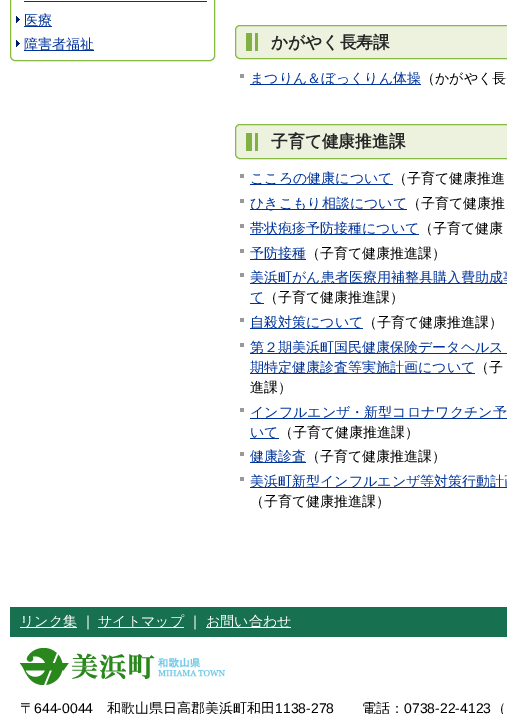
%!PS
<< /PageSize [507 714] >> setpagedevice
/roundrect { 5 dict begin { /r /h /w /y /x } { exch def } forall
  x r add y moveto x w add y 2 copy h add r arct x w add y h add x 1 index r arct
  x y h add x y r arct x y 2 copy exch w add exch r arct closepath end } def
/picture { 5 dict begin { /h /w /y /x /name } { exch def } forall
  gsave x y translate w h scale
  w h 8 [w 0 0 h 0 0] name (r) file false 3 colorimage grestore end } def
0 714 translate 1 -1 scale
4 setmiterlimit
1 setgray
0 0 507 714 rectfill
0.525 0.729 0.255 setrgbcolor
newpath 10.5 -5.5 moveto 214.5 -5.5 lineto 214.5 56 lineto 214.5 58.5 212.5 60.5 210 60.5 curveto 15 60.5 lineto 12.5 60.5 10.5 58.5 10.5 56 curveto closepath stroke
0 0.2 0.6 setrgbcolor
24 1 183 1 rectfill
(img1.rgb) 16 16 4 7 picture
24 26 28 1 rectfill
/WenQuanYiZenHei-Medium [14 0 0 -14 0 0] selectfont
24 25 moveto (医療) show
(img1.rgb) 16 40 4 7 picture
24 50 70 1 rectfill
24 49 moveto (障害者福祉) show
0.929 0.949 0.875 setrgbcolor
235 25 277 34 5 roundrect fill
(img2.rgb) 246 33 12 18 picture
0.525 0.729 0.255 setrgbcolor
235.5 25.5 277 33 4.5 roundrect stroke
/WenQuanYiZenHei-Bold [16.75 0 0 -16.75 0 0] selectfont
0.149 setgray
271 48 moveto (かがやく長寿課) show
0.6 setgray
240 74 4 4 rectfill
0 0.2 0.6 setrgbcolor
250 84 171 1 rectfill
/WenQuanYiZenHei-Medium [14 0 0 -14 0 0] selectfont
250 83 moveto (まつりん＆ぼっくりん体操) show
0 setgray
421 83 moveto (（かがやく長) show
0.929 0.949 0.875 setrgbcolor
235 124 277 35 5 roundrect fill
(img2.rgb) 246 133 12 18 picture
0.525 0.729 0.255 setrgbcolor
235.5 124.5 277 34 4.5 roundrect stroke
/WenQuanYiZenHei-Bold [16.75 0 0 -16.75 0 0] selectfont
0.149 setgray
271 147 moveto (子育て健康推進課) show
0.6 setgray
240 174 4 4 rectfill
0 0.2 0.6 setrgbcolor
250 184 143 1 rectfill
/WenQuanYiZenHei-Medium [14 0 0 -14 0 0] selectfont
250 183 moveto (こころの健康について) show
0 setgray
393 183 moveto (（子育て健康推進) show
0.6 setgray
240 199 4 4 rectfill
0 0.2 0.6 setrgbcolor
250 209 157 1 rectfill
250 208 moveto (ひきこもり相談について) show
0 setgray
407 208 moveto (（子育て健康推) show
0.6 setgray
240 224 4 4 rectfill
0 0.2 0.6 setrgbcolor
250 234 169 1 rectfill
250 233 moveto (帯状疱疹予防接種について) show
0 setgray
419 233 moveto (（子育て健康) show
0.6 setgray
240 249 4 4 rectfill
0 0.2 0.6 setrgbcolor
250 259 56 1 rectfill
250 258 moveto (予防接種) show
0 setgray
306 258 moveto (（子育て健康推進課）) show
0.6 setgray
240 273 4 4 rectfill
0 0.2 0.6 setrgbcolor
250 283 257 1 rectfill
250 282 moveto (美浜町がん患者医療用補整具購入費助成事) show
250 303 14 1 rectfill
250 302 moveto (て) show
0 setgray
264 302 moveto (（子育て健康推進課）) show
0.6 setgray
240 318 4 4 rectfill
0 0.2 0.6 setrgbcolor
250 328 113 1 rectfill
250 327 moveto (自殺対策について) show
0 setgray
363 327 moveto (（子育て健康推進課）) show
0.6 setgray
240 343 4 4 rectfill
0 0.2 0.6 setrgbcolor
250 353 257 1 rectfill
250 352 moveto (第２期美浜町国民健康保険データヘルス) show
250 373 225 1 rectfill
250 372 moveto (期特定健康診査等実施計画について) show
0 setgray
475 372 moveto (（子) show
250 392 moveto (進課）) show
0.6 setgray
240 408 4 4 rectfill
0 0.2 0.6 setrgbcolor
250 418 257 1 rectfill
250 417 moveto (インフルエンザ・新型コロナワクチン予) show
250 438 29 1 rectfill
250 437 moveto (いて) show
0 setgray
279 437 moveto (（子育て健康推進課）) show
0.6 setgray
240 452 4 4 rectfill
0 0.2 0.6 setrgbcolor
250 462 56 1 rectfill
250 461 moveto (健康診査) show
0 setgray
306 461 moveto (（子育て健康推進課）) show
0.6 setgray
240 477 4 4 rectfill
0 0.2 0.6 setrgbcolor
250 487 257 1 rectfill
250 486 moveto (美浜町新型インフルエンザ等対策行動計画) show
0 setgray
250 506 moveto (（子育て健康推進課）) show
0.09 0.439 0.314 setrgbcolor
10 607 497 30 rectfill
1 setgray
20 627 57 1 rectfill
20 626 moveto (リンク集) show
81 626 moveto (｜) show
98 627 86 1 rectfill
98 626 moveto (サイトマップ) show
188 626 moveto (｜) show
206 627 85 1 rectfill
206 626 moveto (お問い合わせ) show
(img3.rgb) 20 648 205 37 picture
0 setgray
20 713 moveto (〒) show
/LiberationSans-Regular [14 0 0 -14 0 0] selectfont
34 713 moveto (644-0044) show
/WenQuanYiZenHei-Medium [14 0 0 -14 0 0] selectfont
107 713 moveto (和歌山県日高郡美浜町和田) show
/LiberationSans-Regular [14 0 0 -14 0 0] selectfont
275 713 moveto (1138-278) show
/WenQuanYiZenHei-Medium [14 0 0 -14 0 0] selectfont
362 713 moveto (電話：) show
/LiberationSans-Regular [14 0 0 -14 0 0] selectfont
404 713 moveto (0738-22-4123) show
/WenQuanYiZenHei-Medium [14 0 0 -14 0 0] selectfont
492 713 moveto (（) show
showpage
